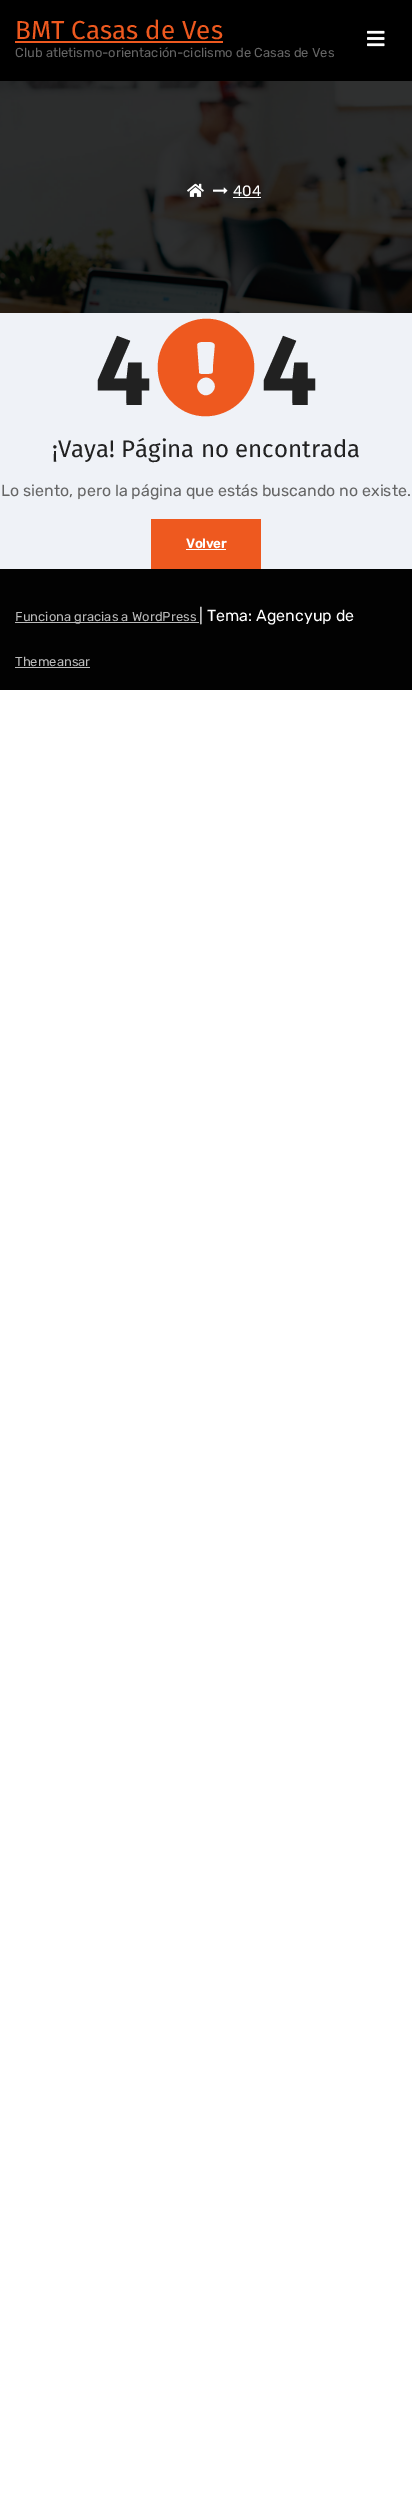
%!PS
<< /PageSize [412 2518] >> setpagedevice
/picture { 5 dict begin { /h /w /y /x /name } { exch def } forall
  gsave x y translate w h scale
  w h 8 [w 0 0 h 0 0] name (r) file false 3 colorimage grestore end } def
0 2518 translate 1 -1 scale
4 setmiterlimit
1 setgray
0 0 412 2518 rectfill
0.937 0.949 0.969 setrgbcolor
0 313 412 256 rectfill
0 setgray
0 0 412 81 rectfill
/FiraSans-Regular [26 0 0 -26 0 0] selectfont
0.933 0.349 0.122 setrgbcolor
15 39 moveto (BMT Casas de Ves) show
15 41 208 2 rectfill
/Rubik-Regular [13 0 0 -13 0 0] selectfont
0.4 setgray
15 57 moveto (Club atletismo-orientación-ciclismo de Casas de Ves) show
(img1.rgb) 367 30 18 17 picture
(img2.rgb) 0 81 412 232 picture
(img3.rgb) 187 183 17 14 picture
(img4.rgb) 213 187 15 7 picture
/Rubik-Regular [15 0 0 -15 0 0] selectfont
1 setgray
233 196 moveto (404) show
233 197 28 1 rectfill
/FiraSans-Bold [100 0 0 -100 0 0] selectfont
0.129 setgray
95 405 moveto (4) show
0.933 0.349 0.122 setrgbcolor
newpath 240 333 moveto 248 341 253 351 254 363 curveto 258 408 204 434 172 402 curveto 164 394 159 384 158 372 curveto 154 327 208 301 240 333 curveto closepath 212 380 moveto 204 372 191 384 200 393 curveto 208 401 221 388 212 380 curveto closepath 197 345 moveto 199 373 lineto 200 375 207 374 209 374 curveto 214 374 213 372 213 367 curveto 215 345 lineto 214 341 208 342 206 342 curveto 204 342 197 341 197 345 curveto closepath fill
0.129 setgray
261 405 moveto (4) show
/FiraSans-Regular [24 0 0 -24 0 0] selectfont
52 457 moveto (¡Vaya! Página no encontrada) show
/Rubik-Regular [16 0 0 -16 0 0] selectfont
0.4 setgray
1 496 moveto (Lo siento, pero la página que estás buscando no existe.) show
0.933 0.349 0.122 setrgbcolor
151 519 110 50 rectfill
/Rubik-Bold [13 0 0 -13 0 0] selectfont
1 setgray
186 548 moveto (Volver) show
186 549 40 1 rectfill
0.008 setgray
0 569 412 121 rectfill
0.733 setgray
15 622 184 1 rectfill
/Rubik-Regular [13 0 0 -13 0 0] selectfont
15 621 moveto (Funciona gracias a WordPress) show
/Rubik-Regular [16 0 0 -16 0 0] selectfont
1 setgray
199 621 moveto (| Tema: Agencyup de) show
/Rubik-Regular [13 0 0 -13 0 0] selectfont
0.733 setgray
15 666 moveto (Themeansar) show
15 667 75 1 rectfill
showpage
